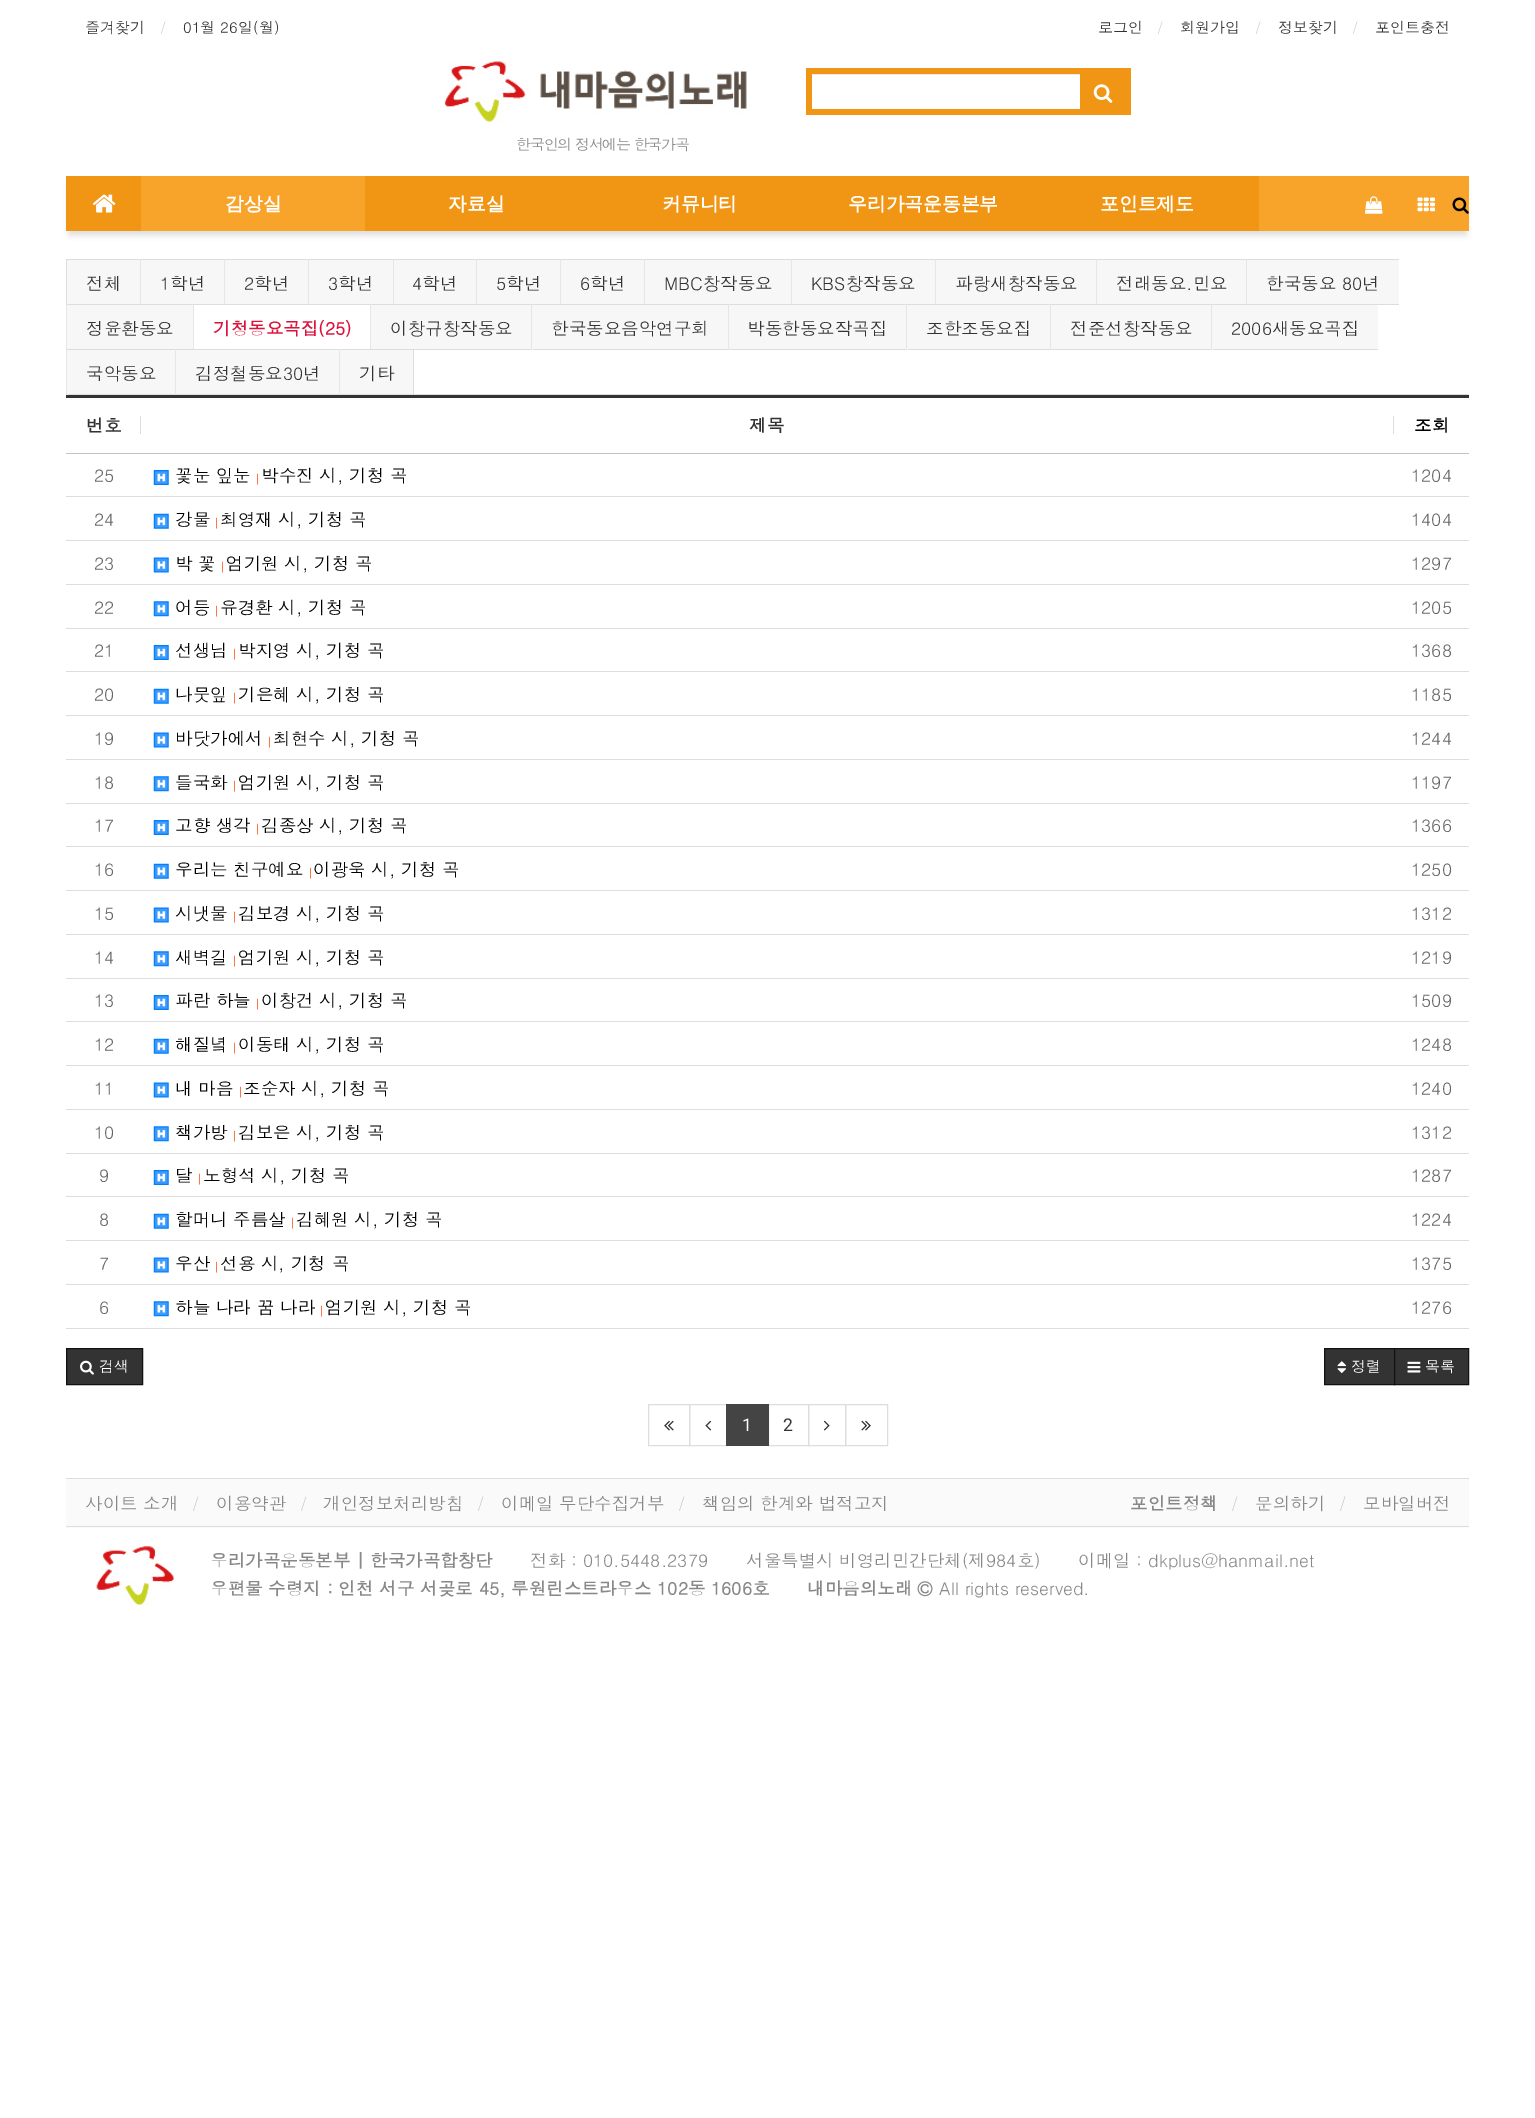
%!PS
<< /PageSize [1535 2118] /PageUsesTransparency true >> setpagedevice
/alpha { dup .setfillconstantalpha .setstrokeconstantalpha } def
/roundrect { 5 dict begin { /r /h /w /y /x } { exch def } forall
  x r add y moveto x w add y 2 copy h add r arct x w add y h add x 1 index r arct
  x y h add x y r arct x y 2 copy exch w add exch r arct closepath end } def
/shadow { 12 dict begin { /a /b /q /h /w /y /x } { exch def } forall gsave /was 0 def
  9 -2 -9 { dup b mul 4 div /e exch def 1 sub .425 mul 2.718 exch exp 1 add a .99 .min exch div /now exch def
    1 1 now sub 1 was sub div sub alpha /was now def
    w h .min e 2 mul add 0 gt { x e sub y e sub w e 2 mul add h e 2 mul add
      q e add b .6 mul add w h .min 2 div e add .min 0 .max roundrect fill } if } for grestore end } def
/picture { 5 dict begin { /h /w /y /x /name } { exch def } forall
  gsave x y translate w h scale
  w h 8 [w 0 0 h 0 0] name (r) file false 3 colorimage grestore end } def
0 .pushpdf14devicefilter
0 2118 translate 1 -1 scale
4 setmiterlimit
1 setgray
0 0 1535 2118 rectfill
/Dotum-Regular [15 0 0 -15 0 0] selectfont
0.2 setgray
85 33 moveto (즐겨찾기) show
0.8 setgray
160 33 moveto (/) show
0.2 setgray
183 33 moveto (01월 26일\(월\)) show
1098 33 moveto (로그인) show
0.8 setgray
1157 33 moveto (/) show
0.2 setgray
1180 33 moveto (회원가입) show
0.8 setgray
1255 33 moveto (/) show
0.2 setgray
1278 33 moveto (정보찾기) show
0.8 setgray
1352 33 moveto (/) show
0.2 setgray
1375 33 moveto (포인트충전) show
0.941 0.588 0.078 setrgbcolor
806 68 325 47 rectfill
1 setgray
812 74 268 35 rectfill
0.925 setgray
813 74 267 1 rectfill
(img1.rgb) 1093 84 20 19 picture
(img2.rgb) 444 61 303 62 picture
0.533 setgray
516 150 moveto -1.25 0 (한국인의 정서에는 한국가곡) ashow
0.098 setgray
69 185 1397 50 0 3 0.15 shadow
0.941 0.588 0.078 setrgbcolor
66 176 1193 55 rectfill
(img3.rgb) 92 194 24 19 picture
0.973 0.643 0.169 setrgbcolor
141 176 224 55 rectfill
/WenQuanYiZenHei-Bold [18.75 0 0 -18.75 0 0] selectfont
1 setgray
225 210 moveto (감상실) show
448 210 moveto (자료실) show
662 210 moveto (커뮤니티) show
848 210 moveto (우리가곡운동본부) show
1100 210 moveto (포인트제도) show
0.973 0.643 0.169 setrgbcolor
1259 176 210 55 rectfill
(img4.rgb) 1365 196 18 18 picture
(img5.rgb) 1417 197 18 15 picture
(img6.rgb) 1452 197 17 17 picture
0.867 setgray
414 394 1055 1 rectfill
0.969 setgray
67 260 73 44 rectfill
0.867 setgray
66 259 1333 1 rectfill
66 259 1 46 rectfill
/Dotum-Regular [17.5 0 0 -17.5 0 0] selectfont
0.2 setgray
86 290 moveto (전체) show
0.969 setgray
141 260 83 44 rectfill
0.902 setgray
140 259 1 46 rectfill
0.2 setgray
160 290 moveto (1학년) show
0.969 setgray
225 260 83 44 rectfill
0.902 setgray
224 259 1 46 rectfill
0.2 setgray
244 290 moveto (2학년) show
0.969 setgray
309 260 84 44 rectfill
0.902 setgray
308 259 1 46 rectfill
0.2 setgray
328 290 moveto (3학년) show
0.969 setgray
394 260 82 44 rectfill
0.902 setgray
393 259 1 46 rectfill
0.2 setgray
412 290 moveto (4학년) show
0.969 setgray
477 260 83 44 rectfill
0.902 setgray
476 259 1 46 rectfill
0.2 setgray
496 290 moveto (5학년) show
0.969 setgray
561 260 83 44 rectfill
0.902 setgray
560 259 1 46 rectfill
0.2 setgray
580 290 moveto (6학년) show
0.969 setgray
645 260 146 44 rectfill
0.902 setgray
644 259 1 46 rectfill
0.2 setgray
664 290 moveto (MBC창작동요) show
0.969 setgray
792 260 143 44 rectfill
0.902 setgray
791 259 1 46 rectfill
0.2 setgray
811 290 moveto (KBS창작동요) show
0.969 setgray
936 260 160 44 rectfill
0.902 setgray
935 259 1 46 rectfill
0.2 setgray
955 290 moveto (파랑새창작동요) show
0.969 setgray
1097 260 149 44 rectfill
0.902 setgray
1096 259 1 46 rectfill
0.2 setgray
1116 290 moveto (전래동요.민요) show
0.969 setgray
1247 260 152 44 rectfill
0.902 setgray
1246 259 1 46 rectfill
0.867 setgray
1378 304 21 1 rectfill
0.2 setgray
1266 290 moveto (한국동요 80년) show
0.969 setgray
67 305 126 44 rectfill
0.867 setgray
66 304 1312 1 rectfill
0.902 setgray
66 304 1 46 rectfill
0.2 setgray
86 335 moveto (정윤환동요) show
0.902 setgray
193 304 1 46 rectfill
/Dotum-Bold [17.5 0 0 -17.5 0 0] selectfont
0.863 0.078 0.235 setrgbcolor
213 335 moveto (기청동요곡집\(25\)) show
0.969 setgray
371 305 160 44 rectfill
0.902 setgray
370 304 1 46 rectfill
0.867 setgray
414 349 117 1 rectfill
/Dotum-Regular [17.5 0 0 -17.5 0 0] selectfont
0.2 setgray
390 335 moveto (이창규창작동요) show
0.969 setgray
532 305 196 45 rectfill
0.902 setgray
531 304 1 46 rectfill
0.867 setgray
533 349 195 1 rectfill
0.2 setgray
551 335 moveto (한국동요음악연구회) show
0.969 setgray
729 305 177 44 rectfill
0.902 setgray
728 304 1 46 rectfill
0.867 setgray
729 349 177 1 rectfill
0.2 setgray
747 335 moveto (박동한동요작곡집) show
0.969 setgray
907 305 143 45 rectfill
0.902 setgray
906 304 1 46 rectfill
0.867 setgray
908 349 142 1 rectfill
0.2 setgray
926 335 moveto (조한조동요집) show
0.969 setgray
1051 305 160 44 rectfill
0.902 setgray
1050 304 1 46 rectfill
0.867 setgray
1051 349 160 1 rectfill
0.2 setgray
1070 335 moveto (전준선창작동요) show
0.969 setgray
1212 305 166 45 rectfill
0.902 setgray
1211 304 1 46 rectfill
0.867 setgray
1213 349 165 1 rectfill
0.2 setgray
1231 335 moveto (2006새동요곡집) show
0.969 setgray
67 350 108 45 rectfill
0.867 setgray
66 349 348 1 rectfill
0.902 setgray
66 349 1 46 rectfill
0.867 setgray
68 394 107 1 rectfill
0.2 setgray
86 380 moveto (국악동요) show
0.969 setgray
176 350 163 44 rectfill
0.902 setgray
175 349 1 46 rectfill
0.867 setgray
176 394 163 1 rectfill
0.2 setgray
195 380 moveto (김정철동요30년) show
0.969 setgray
340 350 73 44 rectfill
0.867 setgray
413 349 1 46 rectfill
0.902 setgray
339 349 1 46 rectfill
0.867 setgray
340 394 73 1 rectfill
0.2 setgray
359 380 moveto (기타) show
66 395 1403 3 rectfill
0.765 setgray
66 453 1403 1 rectfill
0.867 setgray
140 416 1 18 rectfill
/Dotum-Bold [17.5 0 0 -17.5 0 0] selectfont
0.2 setgray
86 432 moveto (번호) show
0.867 setgray
1393 416 1 18 rectfill
0.2 setgray
749 432 moveto (제목) show
0 setgray
1414 432 moveto (조회) show
0.867 setgray
66 496 1403 1 rectfill
/Dotum-Regular [17.5 0 0 -17.5 0 0] selectfont
0.4 setgray
94 482 moveto (25) show
(img7.rgb) 153 470 16 15 picture
0 setgray
175 482 moveto (꽃눈 잎눈) show
/LiberationSerif-Bold [12 0 0 -12 0 0] selectfont
1 0.271 0 setrgbcolor
256 482 moveto -1.25 0 (|) ashow
/Dotum-Regular [17.5 0 0 -17.5 0 0] selectfont
0 setgray
261 482 moveto (박수진 시, 기청 곡) show
0.4 setgray
1411 482 moveto (1204) show
0.867 setgray
66 540 1403 1 rectfill
0.4 setgray
94 526 moveto (24) show
(img8.rgb) 153 513 16 16 picture
0 setgray
175 526 moveto (강물) show
/LiberationSerif-Bold [12 0 0 -12 0 0] selectfont
1 0.271 0 setrgbcolor
215 526 moveto -1.25 0 (|) ashow
/Dotum-Regular [17.5 0 0 -17.5 0 0] selectfont
0 setgray
220 526 moveto (최영재 시, 기청 곡) show
0.4 setgray
1411 526 moveto (1404) show
0.867 setgray
66 584 1403 1 rectfill
0.4 setgray
94 570 moveto (23) show
(img9.rgb) 153 557 16 16 picture
0 setgray
175 570 moveto (박 꽃) show
/LiberationSerif-Bold [12 0 0 -12 0 0] selectfont
1 0.271 0 setrgbcolor
221 570 moveto -1.25 0 (|) ashow
/Dotum-Regular [17.5 0 0 -17.5 0 0] selectfont
0 setgray
226 570 moveto (엄기원 시, 기청 곡) show
0.4 setgray
1411 570 moveto (1297) show
0.867 setgray
66 628 1403 1 rectfill
0.4 setgray
94 614 moveto (22) show
(img10.rgb) 153 601 16 16 picture
0 setgray
175 614 moveto (어등) show
/LiberationSerif-Bold [12 0 0 -12 0 0] selectfont
1 0.271 0 setrgbcolor
215 614 moveto -1.25 0 (|) ashow
/Dotum-Regular [17.5 0 0 -17.5 0 0] selectfont
0 setgray
220 614 moveto (유경환 시, 기청 곡) show
0.4 setgray
1411 614 moveto (1205) show
0.867 setgray
66 671 1403 1 rectfill
0.4 setgray
94 657 moveto (21) show
(img7.rgb) 153 645 16 15 picture
0 setgray
175 657 moveto (선생님) show
/LiberationSerif-Bold [12 0 0 -12 0 0] selectfont
1 0.271 0 setrgbcolor
233 657 moveto -1.25 0 (|) ashow
/Dotum-Regular [17.5 0 0 -17.5 0 0] selectfont
0 setgray
238 657 moveto (박지영 시, 기청 곡) show
0.4 setgray
1411 657 moveto (1368) show
0.867 setgray
66 715 1403 1 rectfill
0.4 setgray
94 701 moveto (20) show
(img8.rgb) 153 688 16 16 picture
0 setgray
175 701 moveto (나뭇잎) show
/LiberationSerif-Bold [12 0 0 -12 0 0] selectfont
1 0.271 0 setrgbcolor
233 701 moveto -1.25 0 (|) ashow
/Dotum-Regular [17.5 0 0 -17.5 0 0] selectfont
0 setgray
238 701 moveto (기은혜 시, 기청 곡) show
0.4 setgray
1411 701 moveto (1185) show
0.867 setgray
66 759 1403 1 rectfill
0.4 setgray
94 745 moveto (19) show
(img9.rgb) 153 732 16 16 picture
0 setgray
175 745 moveto (바닷가에서) show
/LiberationSerif-Bold [12 0 0 -12 0 0] selectfont
1 0.271 0 setrgbcolor
268 745 moveto -1.25 0 (|) ashow
/Dotum-Regular [17.5 0 0 -17.5 0 0] selectfont
0 setgray
273 745 moveto (최현수 시, 기청 곡) show
0.4 setgray
1411 745 moveto (1244) show
0.867 setgray
66 803 1403 1 rectfill
0.4 setgray
94 789 moveto (18) show
(img11.rgb) 153 776 16 16 picture
0 setgray
175 789 moveto (들국화) show
/LiberationSerif-Bold [12 0 0 -12 0 0] selectfont
1 0.271 0 setrgbcolor
233 789 moveto -1.25 0 (|) ashow
/Dotum-Regular [17.5 0 0 -17.5 0 0] selectfont
0 setgray
238 789 moveto (엄기원 시, 기청 곡) show
0.4 setgray
1411 789 moveto (1197) show
0.867 setgray
66 846 1403 1 rectfill
0.4 setgray
94 832 moveto (17) show
(img7.rgb) 153 820 16 15 picture
0 setgray
175 832 moveto (고향 생각) show
/LiberationSerif-Bold [12 0 0 -12 0 0] selectfont
1 0.271 0 setrgbcolor
256 832 moveto -1.25 0 (|) ashow
/Dotum-Regular [17.5 0 0 -17.5 0 0] selectfont
0 setgray
261 832 moveto (김종상 시, 기청 곡) show
0.4 setgray
1411 832 moveto (1366) show
0.867 setgray
66 890 1403 1 rectfill
0.4 setgray
94 876 moveto (16) show
(img8.rgb) 153 863 16 16 picture
0 setgray
175 876 moveto (우리는 친구예요) show
/LiberationSerif-Bold [12 0 0 -12 0 0] selectfont
1 0.271 0 setrgbcolor
309 876 moveto -1.25 0 (|) ashow
/Dotum-Regular [17.5 0 0 -17.5 0 0] selectfont
0 setgray
313 876 moveto (이광욱 시, 기청 곡) show
0.4 setgray
1411 876 moveto (1250) show
0.867 setgray
66 934 1403 1 rectfill
0.4 setgray
94 920 moveto (15) show
(img9.rgb) 153 907 16 16 picture
0 setgray
175 920 moveto (시냇물) show
/LiberationSerif-Bold [12 0 0 -12 0 0] selectfont
1 0.271 0 setrgbcolor
233 920 moveto -1.25 0 (|) ashow
/Dotum-Regular [17.5 0 0 -17.5 0 0] selectfont
0 setgray
238 920 moveto (김보경 시, 기청 곡) show
0.4 setgray
1411 920 moveto (1312) show
0.867 setgray
66 978 1403 1 rectfill
0.4 setgray
94 964 moveto (14) show
(img10.rgb) 153 951 16 16 picture
0 setgray
175 964 moveto (새벽길) show
/LiberationSerif-Bold [12 0 0 -12 0 0] selectfont
1 0.271 0 setrgbcolor
233 964 moveto -1.25 0 (|) ashow
/Dotum-Regular [17.5 0 0 -17.5 0 0] selectfont
0 setgray
238 964 moveto (엄기원 시, 기청 곡) show
0.4 setgray
1411 964 moveto (1219) show
0.867 setgray
66 1021 1403 1 rectfill
0.4 setgray
94 1007 moveto (13) show
(img7.rgb) 153 995 16 15 picture
0 setgray
175 1007 moveto (파란 하늘) show
/LiberationSerif-Bold [12 0 0 -12 0 0] selectfont
1 0.271 0 setrgbcolor
256 1007 moveto -1.25 0 (|) ashow
/Dotum-Regular [17.5 0 0 -17.5 0 0] selectfont
0 setgray
261 1007 moveto (이창건 시, 기청 곡) show
0.4 setgray
1411 1007 moveto (1509) show
0.867 setgray
66 1065 1403 1 rectfill
0.4 setgray
94 1051 moveto (12) show
(img8.rgb) 153 1038 16 16 picture
0 setgray
175 1051 moveto (해질녘) show
/LiberationSerif-Bold [12 0 0 -12 0 0] selectfont
1 0.271 0 setrgbcolor
233 1051 moveto -1.25 0 (|) ashow
/Dotum-Regular [17.5 0 0 -17.5 0 0] selectfont
0 setgray
238 1051 moveto (이동태 시, 기청 곡) show
0.4 setgray
1411 1051 moveto (1248) show
0.867 setgray
66 1109 1403 1 rectfill
0.4 setgray
94 1095 moveto (11) show
(img9.rgb) 153 1082 16 16 picture
0 setgray
175 1095 moveto (내 마음) show
/LiberationSerif-Bold [12 0 0 -12 0 0] selectfont
1 0.271 0 setrgbcolor
239 1095 moveto -1.25 0 (|) ashow
/Dotum-Regular [17.5 0 0 -17.5 0 0] selectfont
0 setgray
243 1095 moveto (조순자 시, 기청 곡) show
0.4 setgray
1411 1095 moveto (1240) show
0.867 setgray
66 1153 1403 1 rectfill
0.4 setgray
94 1139 moveto (10) show
(img10.rgb) 153 1126 16 16 picture
0 setgray
175 1139 moveto (책가방) show
/LiberationSerif-Bold [12 0 0 -12 0 0] selectfont
1 0.271 0 setrgbcolor
233 1139 moveto -1.25 0 (|) ashow
/Dotum-Regular [17.5 0 0 -17.5 0 0] selectfont
0 setgray
238 1139 moveto (김보은 시, 기청 곡) show
0.4 setgray
1411 1139 moveto (1312) show
0.867 setgray
66 1196 1403 1 rectfill
0.4 setgray
99 1182 moveto (9) show
(img7.rgb) 153 1170 16 15 picture
0 setgray
175 1182 moveto (달) show
/LiberationSerif-Bold [12 0 0 -12 0 0] selectfont
1 0.271 0 setrgbcolor
198 1182 moveto -1.25 0 (|) ashow
/Dotum-Regular [17.5 0 0 -17.5 0 0] selectfont
0 setgray
203 1182 moveto (노형석 시, 기청 곡) show
0.4 setgray
1411 1182 moveto (1287) show
0.867 setgray
66 1240 1403 1 rectfill
0.4 setgray
99 1226 moveto (8) show
(img8.rgb) 153 1213 16 16 picture
0 setgray
175 1226 moveto (할머니 주름살) show
/LiberationSerif-Bold [12 0 0 -12 0 0] selectfont
1 0.271 0 setrgbcolor
291 1226 moveto -1.25 0 (|) ashow
/Dotum-Regular [17.5 0 0 -17.5 0 0] selectfont
0 setgray
296 1226 moveto (김혜원 시, 기청 곡) show
0.4 setgray
1411 1226 moveto (1224) show
0.867 setgray
66 1284 1403 1 rectfill
0.4 setgray
99 1270 moveto (7) show
(img9.rgb) 153 1257 16 16 picture
0 setgray
175 1270 moveto (우산) show
/LiberationSerif-Bold [12 0 0 -12 0 0] selectfont
1 0.271 0 setrgbcolor
215 1270 moveto -1.25 0 (|) ashow
/Dotum-Regular [17.5 0 0 -17.5 0 0] selectfont
0 setgray
220 1270 moveto (선용 시, 기청 곡) show
0.4 setgray
1411 1270 moveto (1375) show
0.867 setgray
66 1328 1403 1 rectfill
0.4 setgray
99 1314 moveto (6) show
(img10.rgb) 153 1301 16 16 picture
0 setgray
175 1314 moveto (하늘 나라 꿈 나라) show
/LiberationSerif-Bold [12 0 0 -12 0 0] selectfont
1 0.271 0 setrgbcolor
320 1314 moveto -1.25 0 (|) ashow
/Dotum-Regular [17.5 0 0 -17.5 0 0] selectfont
0 setgray
325 1314 moveto (엄기원 시, 기청 곡) show
0.4 setgray
1411 1314 moveto (1276) show
0.2 setgray
newpath 66.5 1348.5 moveto 142.5 1348.5 lineto 142.5 1384.5 lineto 66.5 1384.5 lineto closepath gsave fill grestore
0.067 setgray
stroke
(img12.rgb) 80 1360 14 15 picture
/Dotum-Regular [15 0 0 -15 0 0] selectfont
1 setgray
99 1372 moveto (검색) show
0.2 setgray
newpath 1324.5 1348.5 moveto 1394.5 1348.5 lineto 1394.5 1384.5 lineto 1324.5 1384.5 lineto closepath gsave fill grestore
0.067 setgray
stroke
(img13.rgb) 1337 1361 9 12 picture
1 setgray
1351 1372 moveto (정렬) show
0.2 setgray
newpath 1394.5 1348.5 moveto 1468.5 1348.5 lineto 1468.5 1384.5 lineto 1394.5 1384.5 lineto closepath gsave fill grestore
0.067 setgray
stroke
(img14.rgb) 1407 1361 14 12 picture
1 setgray
1425 1372 moveto (목록) show
0.867 setgray
648.5 1404.5 41 41 rectstroke
(img15.rgb) 664 1420 10 11 picture
689.5 1404.5 38 41 rectstroke
(img16.rgb) 705 1420 7 11 picture
768.5 1404.5 40 41 rectstroke
0.267 setgray
726 1404 43 42 rectfill
/Roboto-Regular [17.5 0 0 -17.5 0 0] selectfont
1 setgray
742 1431 moveto (1) show
0.2 setgray
783 1431 moveto (2) show
0.867 setgray
808.5 1404.5 37 41 rectstroke
(img17.rgb) 823 1420 7 11 picture
845.5 1404.5 42 41 rectstroke
(img18.rgb) 861 1420 10 11 picture
0.98 setgray
66 1479 1403 49 rectfill
0.867 setgray
66 1478 1403 1 rectfill
66 1526 1403 1 rectfill
/Dotum-Regular [17.5 0 0 -17.5 0 0] selectfont
0.533 setgray
85 1510 moveto (사이트 소개) show
0.8 setgray
192 1510 moveto (/) show
0.533 setgray
216 1510 moveto (이용약관) show
0.8 setgray
300 1510 moveto (/) show
0.533 setgray
323 1510 moveto (개인정보처리방침) show
0.8 setgray
477 1510 moveto (/) show
0.533 setgray
501 1510 moveto (이메일 무단수집거부) show
0.8 setgray
678 1510 moveto (/) show
0.533 setgray
702 1510 moveto (책임의 한계와 법적고지) show
/Dotum-Bold [17.5 0 0 -17.5 0 0] selectfont
1130 1510 moveto (포인트정책) show
/Dotum-Regular [17.5 0 0 -17.5 0 0] selectfont
0.8 setgray
1231 1510 moveto (/) show
0.533 setgray
1255 1510 moveto (문의하기) show
0.8 setgray
1339 1510 moveto (/) show
0.533 setgray
1363 1510 moveto (모바일버전) show
(img19.rgb) 96 1546 79 59 picture
/Dotum-Bold [17.5 0 0 -17.5 0 0] selectfont
210 1567 moveto (우리가곡운동본부 | 한국가곡합창단) show
/Dotum-Regular [17.5 0 0 -17.5 0 0] selectfont
530 1567 moveto (전화 : 010.5448.2379) show
746 1567 moveto (서울특별시 비영리민간단체\(제984호\)) show
1078 1567 moveto (이메일 : dkplus@hanmail.net) show
/Dotum-Bold [17.5 0 0 -17.5 0 0] selectfont
210 1595 moveto (우편물 수령지 : 인천 서구 서곶로 45, 루원린스트라우스 102동 1606호) show
807 1595 moveto (내마음의노래) show
(img20.rgb) 917 1581 16 16 picture
/Dotum-Regular [17.5 0 0 -17.5 0 0] selectfont
939 1595 moveto (All rights reserved.) show
.poppdf14devicefilter showpage
